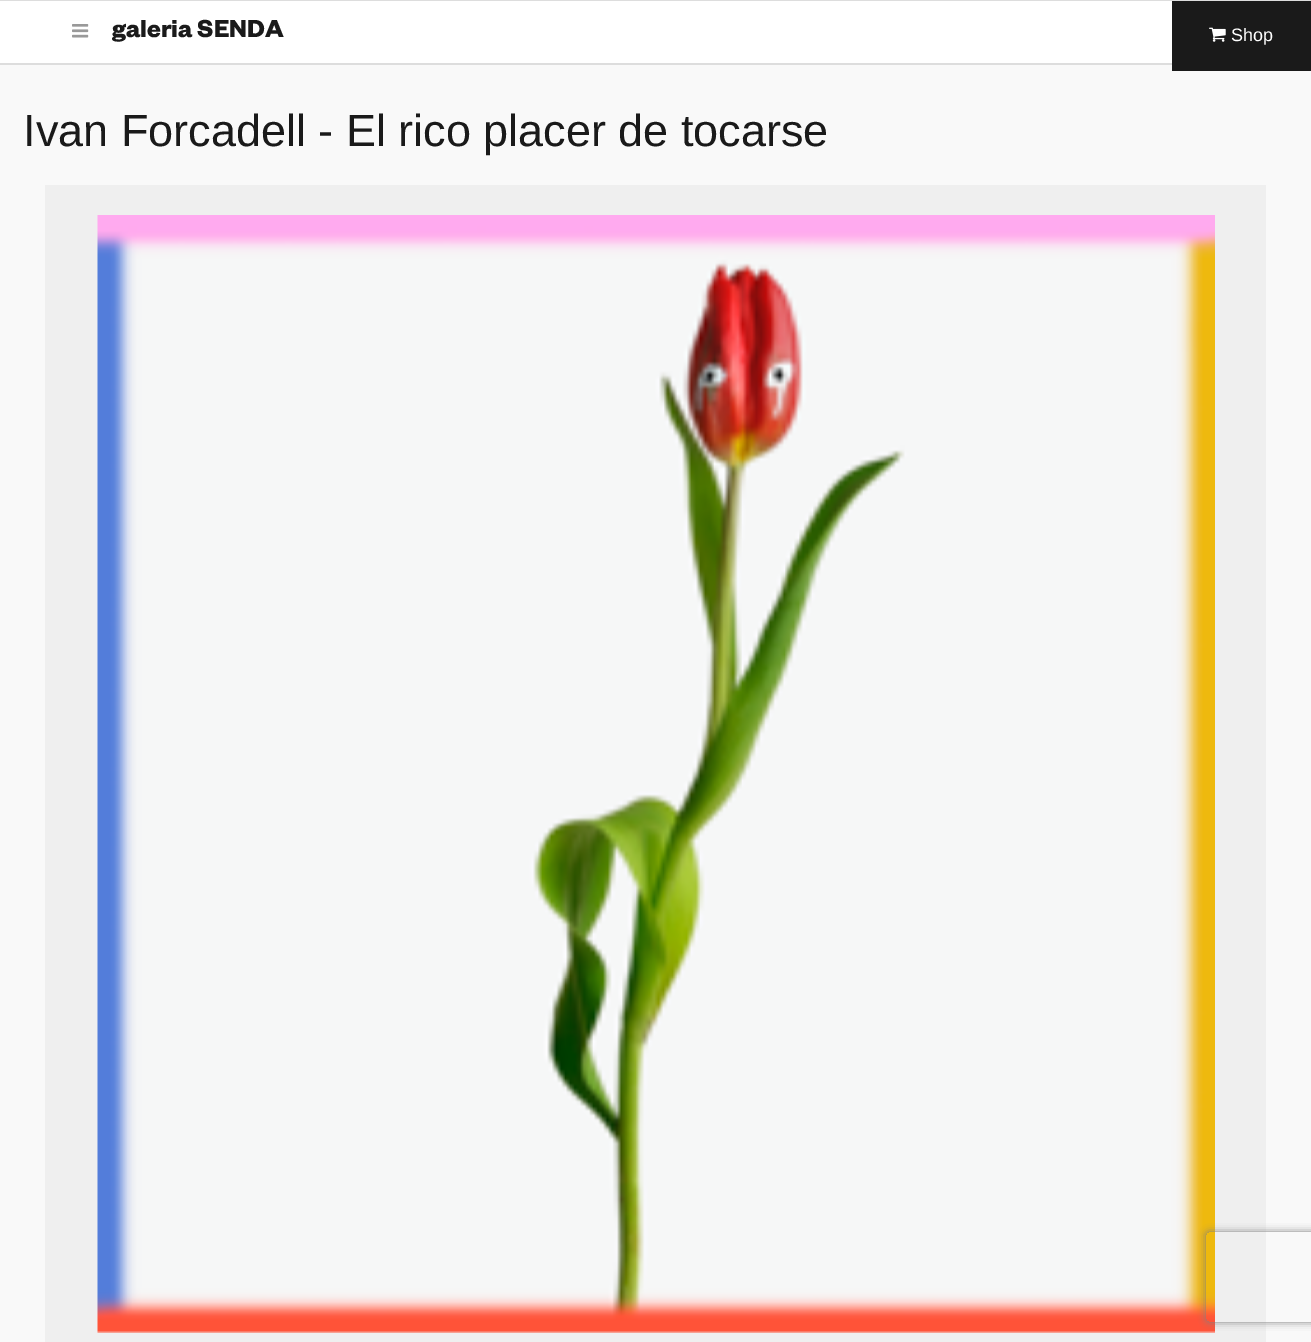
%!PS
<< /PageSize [1311 1342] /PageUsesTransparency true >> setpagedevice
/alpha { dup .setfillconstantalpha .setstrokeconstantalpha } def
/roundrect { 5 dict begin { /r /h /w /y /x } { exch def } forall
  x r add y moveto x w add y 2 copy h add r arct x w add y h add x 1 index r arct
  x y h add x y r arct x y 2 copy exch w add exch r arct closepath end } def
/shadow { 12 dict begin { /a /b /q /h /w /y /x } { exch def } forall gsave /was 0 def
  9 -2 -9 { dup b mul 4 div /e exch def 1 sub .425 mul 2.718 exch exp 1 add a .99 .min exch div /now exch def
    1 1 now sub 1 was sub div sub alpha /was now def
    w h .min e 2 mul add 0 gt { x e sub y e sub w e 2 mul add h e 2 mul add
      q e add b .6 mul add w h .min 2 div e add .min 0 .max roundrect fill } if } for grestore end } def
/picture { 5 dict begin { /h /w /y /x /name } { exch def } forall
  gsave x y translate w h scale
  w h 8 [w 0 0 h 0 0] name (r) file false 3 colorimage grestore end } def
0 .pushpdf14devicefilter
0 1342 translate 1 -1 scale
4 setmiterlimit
0.976 setgray
0 0 1311 1342 rectfill
0.867 setgray
0 0 1311 1 rectfill
1 setgray
0 1 1172 62 rectfill
0.867 setgray
0 63 1172 2 rectfill
(img1.rgb) 72 24 17 14 picture
/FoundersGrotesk-Bold [27 0 0 -27 0 0] selectfont
0.102 setgray
112 37 moveto (galeria SENDA) show
1172 1 139 70 rectfill
(img2.rgb) 1209 27 17 15 picture
/LiberationSans-Regular [18 0 0 -18 0 0] selectfont
1 setgray
1231 41 moveto (Shop) show
/LiberationSans-Regular [45 0 0 -45 0 0] selectfont
0.102 setgray
23 146 moveto (Ivan Forcadell - El rico placer de tocarse) show
0.937 setgray
45 185 1221 1157 rectfill
(img3.rgb) 97 215 1118 1118 picture
gsave
newpath 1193 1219 moveto 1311 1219 lineto 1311 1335 lineto 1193 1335 lineto closepath 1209 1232 moveto 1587 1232 lineto 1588.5 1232 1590 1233.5 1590 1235 curveto 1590 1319 lineto 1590 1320.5 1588.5 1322 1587 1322 curveto 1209 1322 lineto 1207.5 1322 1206 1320.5 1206 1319 curveto 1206 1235 lineto 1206 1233.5 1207.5 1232 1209 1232 curveto closepath eoclip newpath
0.502 setgray
1206 1232 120 90 3 4 1 shadow
grestore
.poppdf14devicefilter showpage
